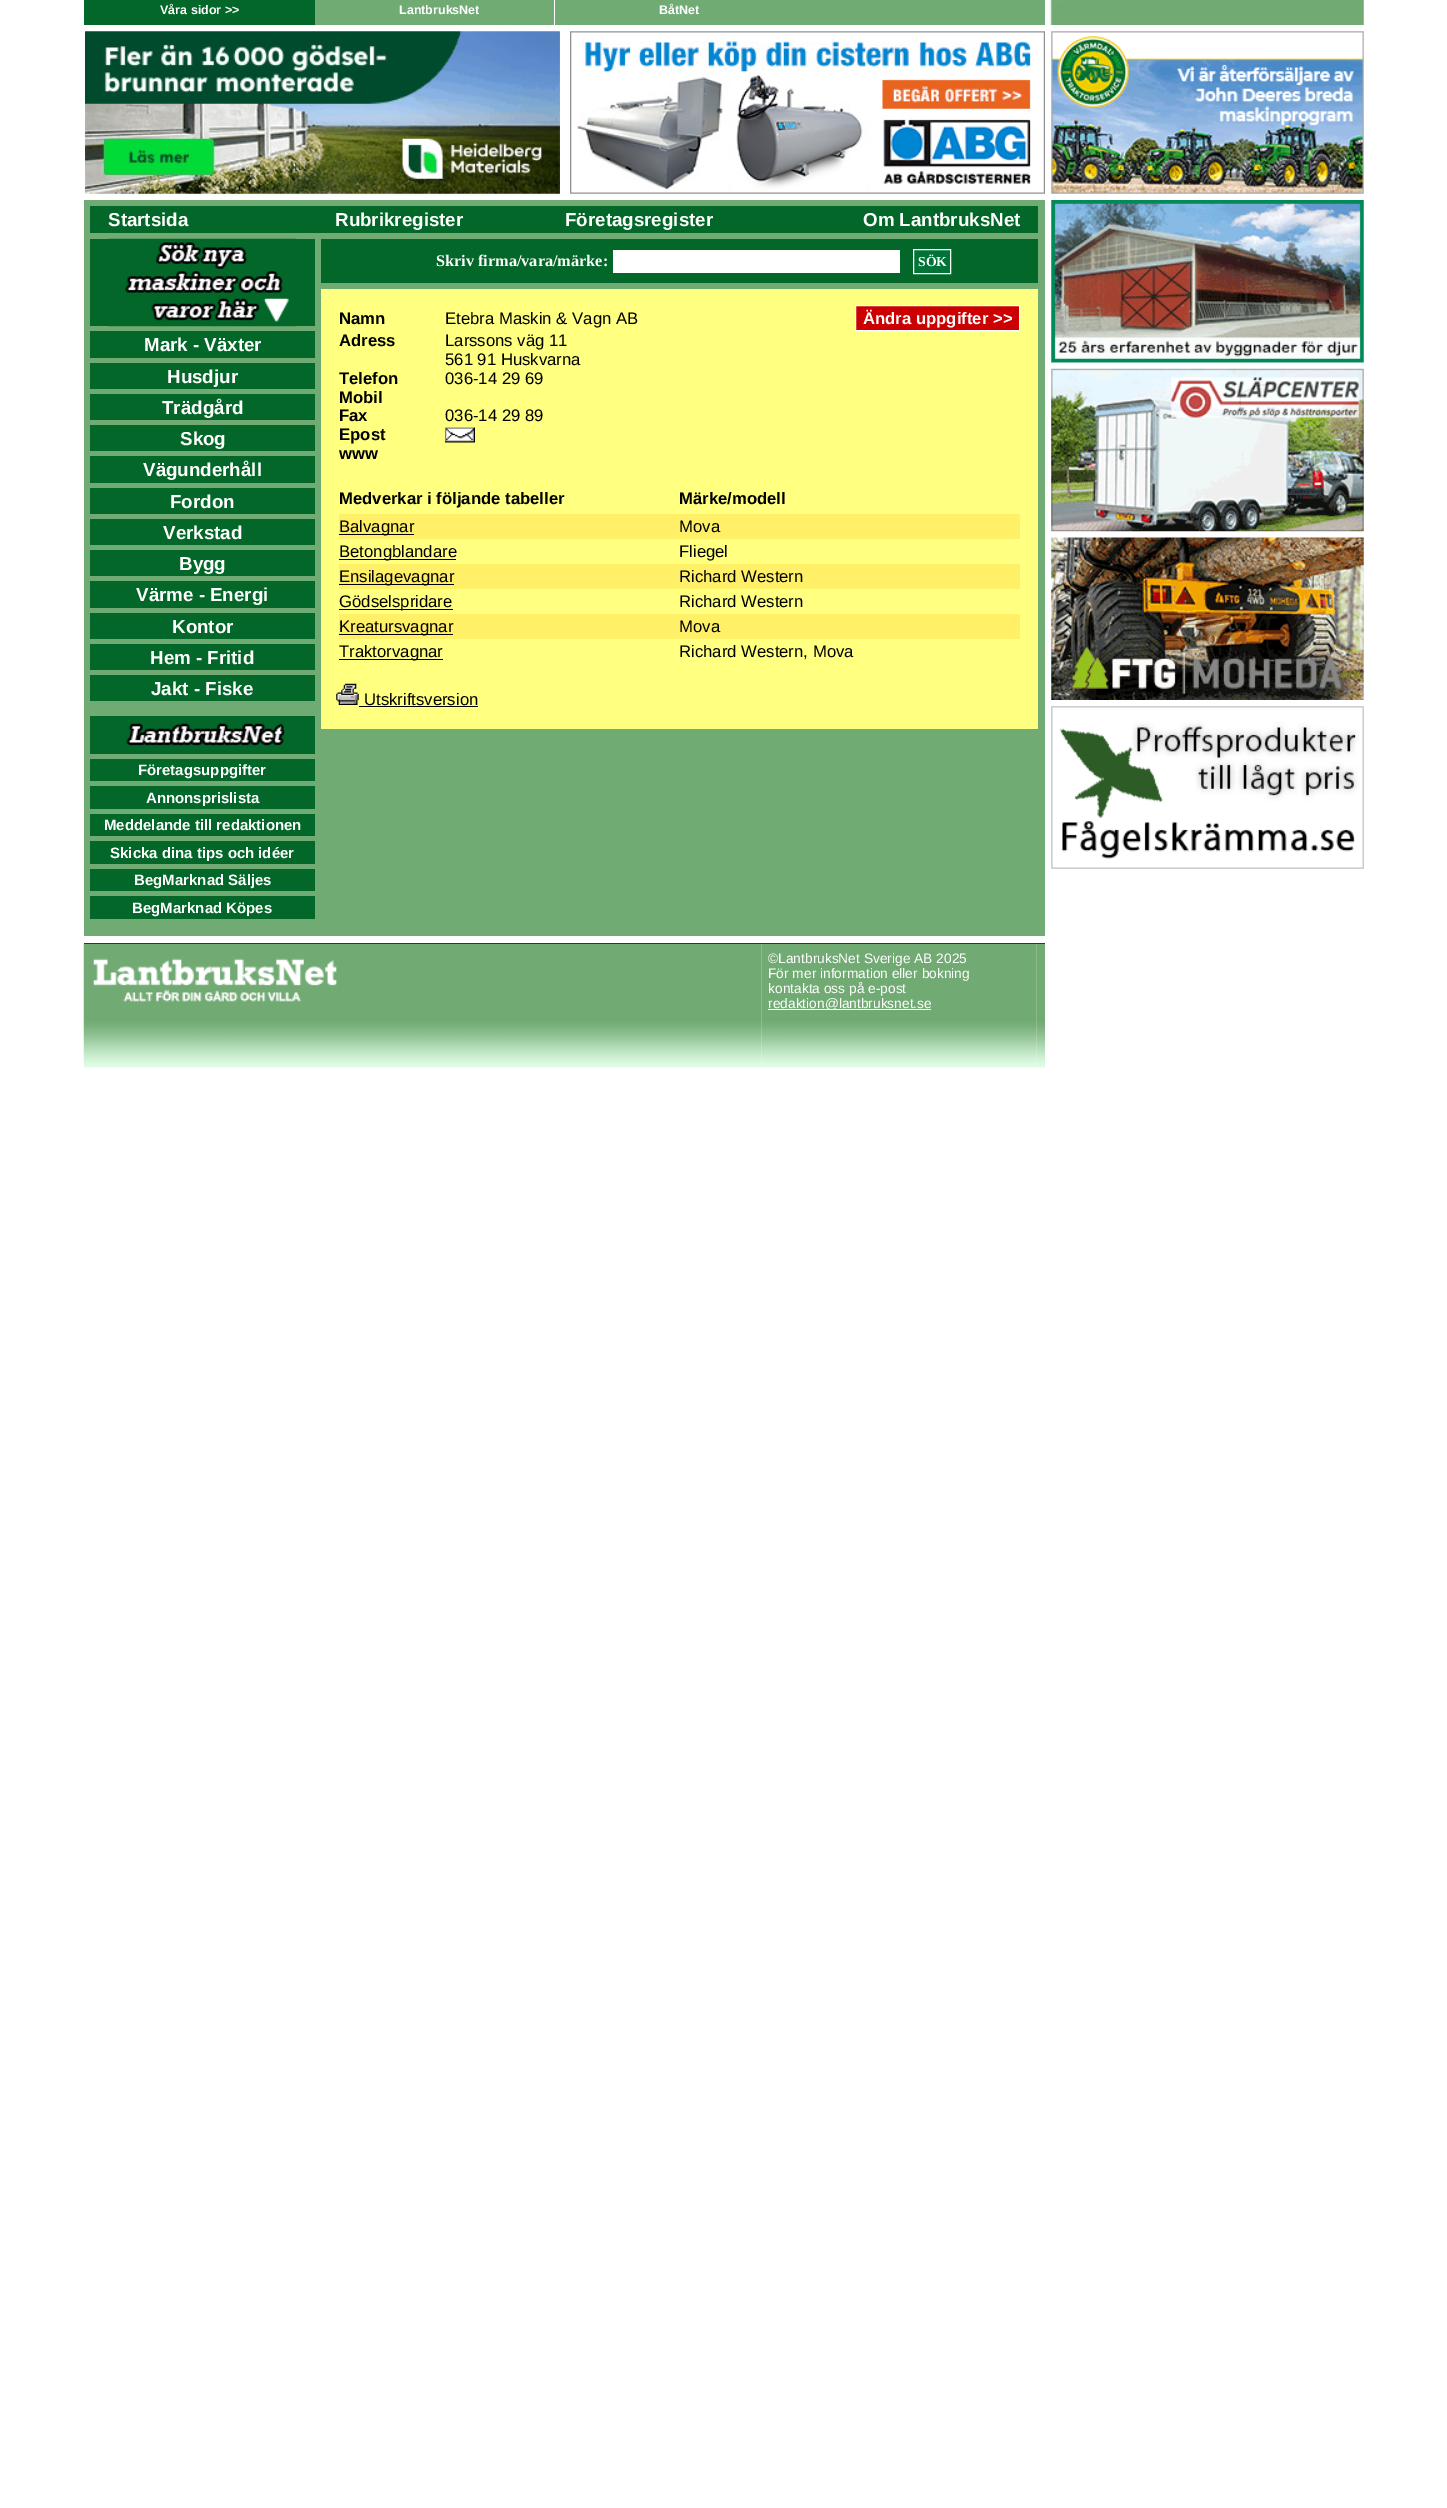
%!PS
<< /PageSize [1447 2508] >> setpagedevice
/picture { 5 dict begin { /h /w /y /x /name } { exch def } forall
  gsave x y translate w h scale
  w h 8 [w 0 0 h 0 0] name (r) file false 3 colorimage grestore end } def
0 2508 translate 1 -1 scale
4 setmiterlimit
1 setgray
0 0 1447 2508 rectfill
0.443 0.671 0.455 setrgbcolor
315 0 730 25 rectfill
0.012 0.404 0.161 setrgbcolor
84 0 231 25 rectfill
/LiberationSans-Bold [12.5 0 0 -12.5 0 0] selectfont
1 setgray
160 14 moveto (Våra sidor >>) show
554 0 1 25 rectfill
399 14 moveto (LantbruksNet) show
659 14 moveto (BåtNet) show
(img1.rgb) 1049 0 315 25 picture
(img2.rgb) 85 31 475 163 picture
(img3.rgb) 570 31 475 163 picture
(img4.rgb) 1051 31 313 163 picture
0.443 0.671 0.455 setrgbcolor
84 200 961 736 rectfill
0.012 0.404 0.161 setrgbcolor
90 206 948 27 rectfill
/LiberationSans-Bold [18.75 0 0 -18.75 0 0] selectfont
1 setgray
108 226 moveto (Startsida) show
335 226 moveto (Rubrikregister) show
565 226 moveto (Företagsregister) show
863 226 moveto (Om LantbruksNet) show
0.012 0.404 0.161 setrgbcolor
90 239 225 87 rectfill
(img5.rgb) 108 238 189 89 picture
90 331 225 27 rectfill
1 setgray
144 351 moveto (Mark - Växter) show
0.012 0.404 0.161 setrgbcolor
90 363 225 26 rectfill
1 setgray
167 383 moveto (Husdjur) show
0.012 0.404 0.161 setrgbcolor
90 394 225 26 rectfill
1 setgray
162 414 moveto (Trädgård) show
0.012 0.404 0.161 setrgbcolor
90 425 225 26 rectfill
1 setgray
180 445 moveto (Skog) show
0.012 0.404 0.161 setrgbcolor
90 456 225 27 rectfill
1 setgray
143 476 moveto (Vägunderhåll) show
0.012 0.404 0.161 setrgbcolor
90 488 225 26 rectfill
1 setgray
170 508 moveto (Fordon) show
0.012 0.404 0.161 setrgbcolor
90 519 225 26 rectfill
1 setgray
163 539 moveto (Verkstad) show
0.012 0.404 0.161 setrgbcolor
90 550 225 26 rectfill
1 setgray
179 570 moveto (Bygg) show
0.012 0.404 0.161 setrgbcolor
90 581 225 27 rectfill
1 setgray
136 601 moveto (Värme - Energi) show
0.012 0.404 0.161 setrgbcolor
90 613 225 26 rectfill
1 setgray
172 633 moveto (Kontor) show
0.012 0.404 0.161 setrgbcolor
90 644 225 26 rectfill
1 setgray
150 664 moveto (Hem - Fritid) show
0.012 0.404 0.161 setrgbcolor
90 675 225 26 rectfill
1 setgray
151 695 moveto (Jakt - Fiske) show
0.012 0.404 0.161 setrgbcolor
90 716 225 38 rectfill
(img6.rgb) 126 723 159 23 picture
90 759 225 22 rectfill
/LiberationSans-Bold [15 0 0 -15 0 0] selectfont
1 setgray
138 775 moveto (Företagsuppgifter) show
0.012 0.404 0.161 setrgbcolor
90 786 225 23 rectfill
1 setgray
146 803 moveto (Annonsprislista) show
0.012 0.404 0.161 setrgbcolor
90 814 225 22 rectfill
1 setgray
104 830 moveto (Meddelande till redaktionen) show
0.012 0.404 0.161 setrgbcolor
90 841 225 23 rectfill
1 setgray
110 858 moveto (Skicka dina tips och idéer) show
0.012 0.404 0.161 setrgbcolor
90 869 225 22 rectfill
1 setgray
134 885 moveto (BegMarknad Säljes) show
0.012 0.404 0.161 setrgbcolor
90 896 225 23 rectfill
1 setgray
132 913 moveto (BegMarknad Köpes) show
0.012 0.404 0.161 setrgbcolor
321 239 717 44 rectfill
/LiberationSerif-Bold [16.25 0 0 -16.25 0 0] selectfont
1 setgray
436 266 moveto (Skriv firma/vara/märke:) show
613 250 287 23 rectfill
0 0.451 0.212 setrgbcolor
newpath 913.5 249.5 moveto 950.5 249.5 lineto 950.5 273.5 lineto 913.5 273.5 lineto closepath gsave fill grestore
1 setgray
stroke
/LiberationSerif-Bold [13.75 0 0 -13.75 0 0] selectfont
918 266 moveto (SÖK) show
1 1 0.502 setrgbcolor
321 289 717 440 rectfill
/LiberationSans-Bold [16.7 0 0 -16.7 0 0] selectfont
0 setgray
339 324 moveto (Namn) show
/LiberationSans-Regular [16.7 0 0 -16.7 0 0] selectfont
445 324 moveto (Etebra Maskin & Vagn AB) show
0.8 0 0 setrgbcolor
newpath 855.5 305.5 moveto 1019.5 305.5 lineto 1019.5 330.5 lineto 855.5 330.5 lineto closepath gsave fill grestore
1 setgray
stroke
/LiberationSans-Bold [16.7 0 0 -16.7 0 0] selectfont
863 324 moveto (Ändra uppgifter >>) show
0 setgray
339 346 moveto (Adress) show
/LiberationSans-Regular [16.7 0 0 -16.7 0 0] selectfont
445 346 moveto (Larssons väg 11) show
445 365 moveto (561 91 Huskvarna) show
/LiberationSans-Bold [16.7 0 0 -16.7 0 0] selectfont
339 384 moveto (Telefon) show
/LiberationSans-Regular [16.7 0 0 -16.7 0 0] selectfont
445 384 moveto (036-14 29 69) show
/LiberationSans-Bold [16.7 0 0 -16.7 0 0] selectfont
339 403 moveto (Mobil) show
339 421 moveto (Fax) show
/LiberationSans-Regular [16.7 0 0 -16.7 0 0] selectfont
445 421 moveto (036-14 29 89) show
/LiberationSans-Bold [16.7 0 0 -16.7 0 0] selectfont
339 440 moveto (Epost) show
(img7.rgb) 445 427 30 16 picture
339 459 moveto (www) show
339 504 moveto (Medverkar i följande tabeller) show
679 504 moveto (Märke/modell) show
1 0.941 0.408 setrgbcolor
339 514 681 25 rectfill
0 setgray
339 534 75 1 rectfill
/LiberationSans-Regular [16.7 0 0 -16.7 0 0] selectfont
339 532 moveto (Balvagnar) show
679 532 moveto (Mova) show
339 559 117 1 rectfill
339 557 moveto (Betongblandare) show
679 557 moveto (Fliegel) show
1 0.941 0.408 setrgbcolor
339 564 681 25 rectfill
0 setgray
339 584 115 1 rectfill
339 582 moveto (Ensilagevagnar) show
679 582 moveto (Richard Western) show
339 609 114 1 rectfill
339 607 moveto (Gödselspridare) show
679 607 moveto (Richard Western) show
1 0.941 0.408 setrgbcolor
339 614 681 25 rectfill
0 setgray
339 634 114 1 rectfill
339 632 moveto (Kreatursvagnar) show
679 632 moveto (Mova) show
339 659 104 1 rectfill
339 657 moveto (Traktorvagnar) show
679 657 moveto (Richard Western, Mova) show
(img8.rgb) 336 683 23 22 picture
364 705 moveto (Utskriftsversion) show
359 706 119 1 rectfill
(img9.rgb) 1051 200 313 163 picture
(img10.rgb) 1051 368 313 164 picture
(img11.rgb) 1051 537 313 163 picture
(img12.rgb) 1051 706 313 163 picture
(img13.rgb) 83 943 679 125 picture
0.2 setgray
84 943 961 1 rectfill
(img14.rgb) 93 958 244 44 picture
(img15.rgb) 761 944 276 124 picture
/LiberationSans-Regular [13.75 0 0 -13.75 0 0] selectfont
1 setgray
768 963 moveto (©LantbruksNet Sverige AB 2025) show
768 978 moveto (För mer information eller bokning) show
768 993 moveto (kontakta oss på e-post) show
768 1009 163 1 rectfill
768 1008 moveto (redaktion@lantbruksnet.se) show
(img16.rgb) 1036 944 9 124 picture
showpage
